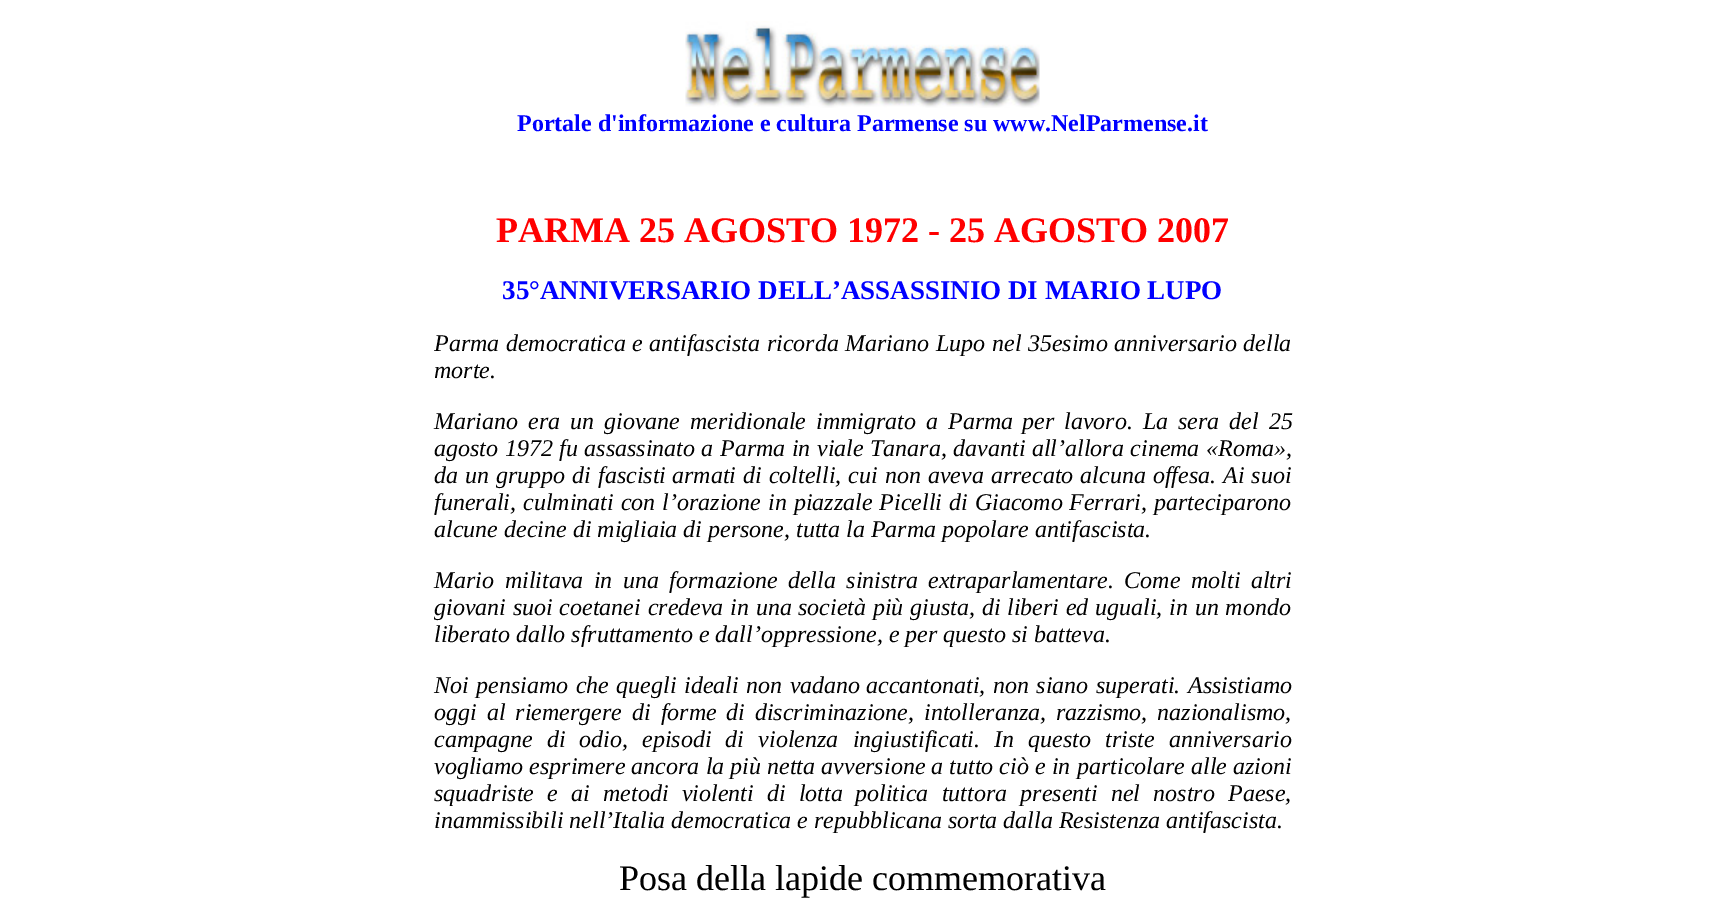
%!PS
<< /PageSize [1724 908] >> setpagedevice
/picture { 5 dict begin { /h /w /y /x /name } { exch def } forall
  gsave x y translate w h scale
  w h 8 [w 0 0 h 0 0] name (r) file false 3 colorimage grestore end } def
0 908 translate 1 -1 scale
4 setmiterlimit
1 setgray
0 0 1724 908 rectfill
(img1.rgb) 685 21 355 87 picture
/LiberationSerif-Bold [24 0 0 -24 0 0] selectfont
0 0 1 setrgbcolor
517 131 moveto (Portale d'informazione e cultura Parmense su www.NelParmense.it) show
/LiberationSerif-Bold [36 0 0 -36 0 0] selectfont
1 0 0 setrgbcolor
496 242 moveto (PARMA 25 AGOSTO 1972 - 25 AGOSTO 2007) show
/LiberationSerif-Bold [27 0 0 -27 0 0] selectfont
0 0 1 setrgbcolor
502 299 moveto (35°ANNIVERSARIO DELL’ASSASSINIO DI MARIO LUPO) show
/LiberationSerif-Italic [24 0 0 -24 0 0] selectfont
0 setgray
434 351 moveto 0.5 0 32 (Parma democratica e antifascista ricorda Mariano Lupo) widthshow
992 351 moveto 0.5 0 32 (nel 35esimo anniversario della) widthshow
434 378 moveto (morte.) show
434 429 moveto 4 0 32 (Mariano era un giovane meridionale immigrato a Parma) widthshow
1022 429 moveto 4 0 32 (per lavoro. La sera del 25) widthshow
434 456 moveto 0.5 0 32 (agosto 1972 fu assassinato a Parma in viale) widthshow
870 456 moveto 0.5 0 32 (Tanara, davanti all’allora cinema «Roma»,) widthshow
434 483 moveto 1 0 32 (da un gruppo di fascisti) widthshow
672 483 moveto 1 0 32 (armati di coltelli, cui non aveva arrecato alcuna offesa. Ai suoi) widthshow
434 510 moveto 1 0 32 (funerali, culminati con l’orazione in piazzale Picelli di Giacomo) widthshow
1069 510 moveto 1 0 32 (Ferrari, parteciparono) widthshow
434 537 moveto (alcune decine di migliaia di persone, tutta la Parma popolare antifascista.) show
434 588 moveto 4.5 0 32 (Mario militava in una formazione della sinistra) widthshow
928 588 moveto 4.5 0 32 (extraparlamentare. Come molti altri) widthshow
434 615 moveto 0.75 0 32 (giovani suoi coetanei credeva in una) widthshow
798 615 moveto 0.75 0 32 (società più giusta, di liberi ed uguali, in un mondo) widthshow
434 642 moveto (liberato dallo sfruttamento e dall’oppressione, e per questo si batteva.) show
434 693 moveto 1.5 0 32 (Noi pensiamo che quegli ideali non vadano) widthshow
866 693 moveto 1.5 0 32 (accantonati, non siano superati. Assistiamo) widthshow
434 720 moveto 4 0 32 (oggi al riemergere di forme) widthshow
726 720 moveto 4 0 32 (di discriminazione, intolleranza, razzismo, nazionalismo,) widthshow
434 747 moveto 8.25 0 32 (campagne di) widthshow
579 747 moveto 8.25 0 32 (odio, episodi di violenza ingiustificati. In questo triste anniversario) widthshow
434 774 moveto 0.1 0 32 (vogliamo esprimere ancora la più netta avversione a tutto ciò e in) widthshow
1077 774 moveto (particolare alle azioni) show
434 801 moveto 7.25 0 32 (squadriste e ai metodi violenti di lotta) widthshow
855 801 moveto 7.25 0 32 (politica tuttora presenti nel nostro Paese,) widthshow
434 828 moveto (inammissibili nell’Italia democratica e repubblicana sorta dalla Resistenza antifascista.) show
/LiberationSerif-Regular [36 0 0 -36 0 0] selectfont
619 890 moveto (Posa della lapide commemorativa) show
showpage
